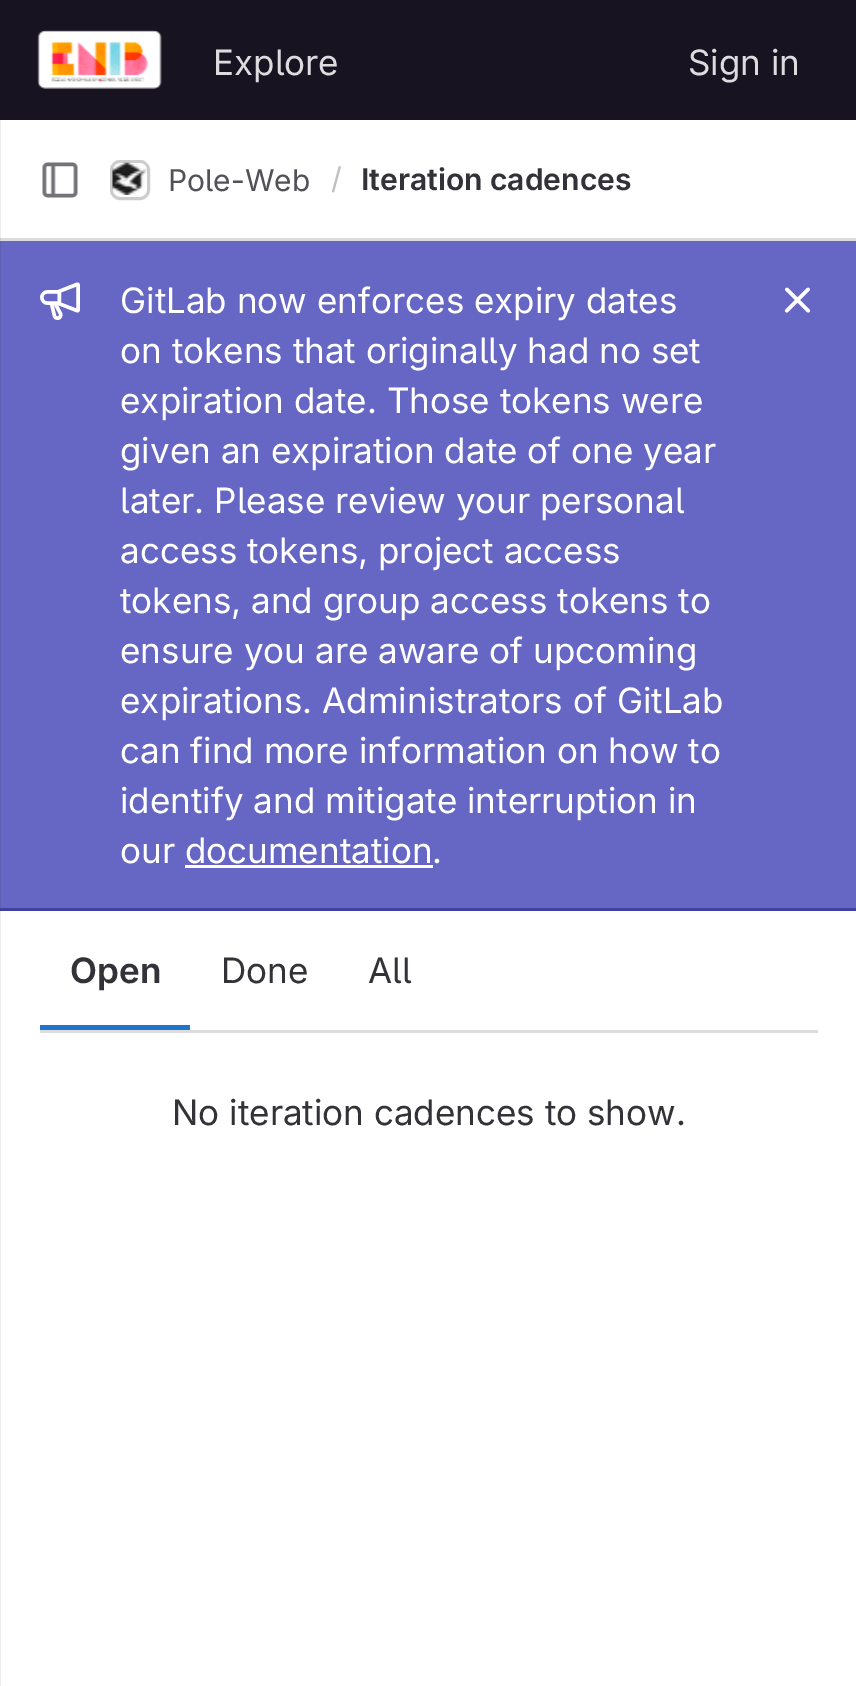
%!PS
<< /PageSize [856 1686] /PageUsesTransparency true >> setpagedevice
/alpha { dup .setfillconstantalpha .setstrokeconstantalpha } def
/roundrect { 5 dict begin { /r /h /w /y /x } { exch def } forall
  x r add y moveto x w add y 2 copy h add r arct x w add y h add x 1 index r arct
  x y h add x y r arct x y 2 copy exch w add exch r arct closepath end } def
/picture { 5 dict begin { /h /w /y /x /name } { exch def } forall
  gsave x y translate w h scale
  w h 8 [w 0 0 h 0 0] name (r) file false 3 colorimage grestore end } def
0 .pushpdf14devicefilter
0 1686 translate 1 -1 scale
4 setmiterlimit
1 setgray
0 0 856 1686 rectfill
0.929 setgray
0 120 1 1566 rectfill
0.09 0.075 0.129 setrgbcolor
0 0 856 120 rectfill
(img1.rgb) 37 30 125 59 picture
/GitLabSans-Regular [35 0 0 -35 0 0] selectfont
0.863 0.863 0.871 setrgbcolor
213 75 moveto (Explore) show
688 75 moveto (Sign in) show
0.376 0.376 0.718 setrgbcolor
0 240 1 670 rectfill
0.863 0.863 0.871 setrgbcolor
0 238 856 3 rectfill
0.804 0.804 0.812 setrgbcolor
0 238 1 3 rectfill
(img2.rgb) 42 162 36 36 picture
0.863 0.863 0.871 setrgbcolor
3 setlinewidth
111.5 161.5 37 37 8.5 roundrect stroke
(img3.rgb) 112 162 36 33 picture
0.08 alpha
0.122 0.118 0.141 setrgbcolor
111.5 161.5 37 37 8.5 roundrect stroke
/GitLabSans-Regular [30 0 0 -30 0 0] selectfont
1 alpha
0.325 0.318 0.345 setrgbcolor
168 191 moveto (Pole-Web) show
0.749 0.749 0.765 setrgbcolor
331 189 moveto (/) show
/GitLabSans-SemiBold [30 0 0 -30 0 0] selectfont
0.2 0.196 0.22 setrgbcolor
361 190 moveto (Iteration cadences) show
0.4 0.4 0.769 setrgbcolor
1 241 855 667 rectfill
0.255 0.255 0.624 setrgbcolor
0 908 856 3 rectfill
0.243 0.243 0.584 setrgbcolor
0 908 1 3 rectfill
(img4.rgb) 40 282 40 38 picture
/GitLabSans-Regular [35 0 0 -35 0 0] selectfont
1 setgray
120 313 moveto (GitLab now enforces expiry dates) show
120 363 moveto (on tokens that originally had no set) show
120 413 moveto (expiration date. Those tokens were) show
120 463 moveto (given an expiration date of one year) show
120 513 moveto (later. Please review your personal) show
120 563 moveto (access tokens, project access) show
120 613 moveto (tokens, and group access tokens to) show
120 663 moveto (ensure you are aware of upcoming) show
120 713 moveto (expirations. Administrators of GitLab) show
120 763 moveto (can find more information on how to) show
120 813 moveto (identify and mitigate interruption in) show
120 863 moveto (our documentation.) show
185 865 248 3 rectfill
(img5.rgb) 784 287 27 26 picture
0.863 0.863 0.871 setrgbcolor
40 1030 778 3 rectfill
0.122 0.459 0.796 setrgbcolor
40 1025 150 5 rectfill
/GitLabSans-SemiBold [35 0 0 -35 0 0] selectfont
0.2 0.196 0.22 setrgbcolor
70 983 moveto (Open) show
/GitLabSans-Regular [35 0 0 -35 0 0] selectfont
221 983 moveto (Done) show
368 983 moveto (All) show
172 1125 moveto (No iteration cadences to show.) show
.poppdf14devicefilter showpage
